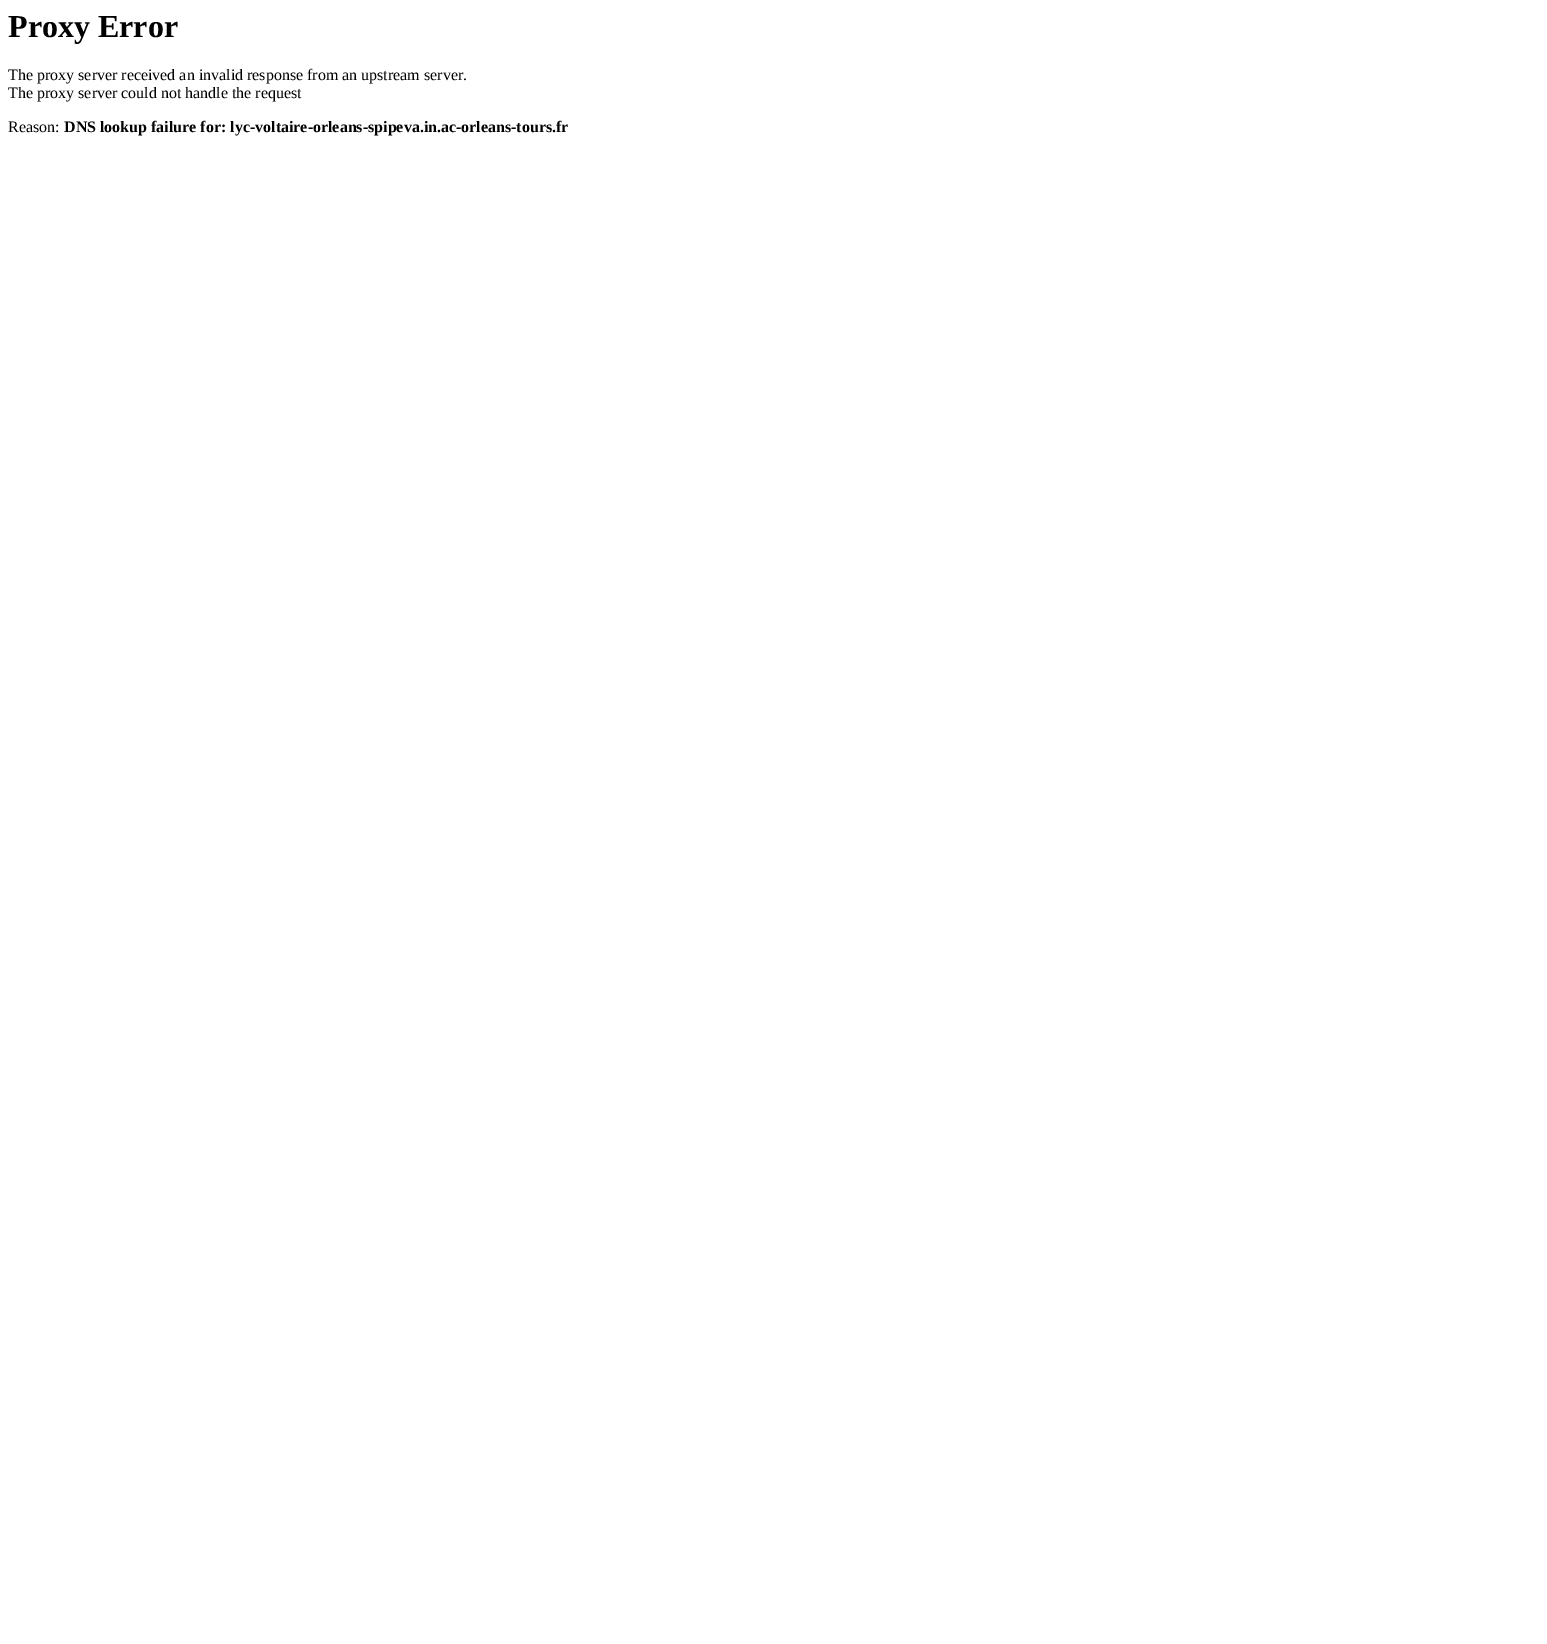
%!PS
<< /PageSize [1547 1644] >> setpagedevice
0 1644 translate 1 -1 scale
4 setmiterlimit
1 setgray
0 0 1547 1644 rectfill
/LiberationSerif-Bold [32 0 0 -32 0 0] selectfont
0 setgray
8 37 moveto (Proxy Error) show
/LiberationSerif-Regular [16 0 0 -16 0 0] selectfont
8 80 moveto (The proxy server received an invalid response from an upstream server.) show
8 98 moveto (The proxy server could not handle the request) show
8 132 moveto (Reason:) show
/LiberationSerif-Bold [16 0 0 -16 0 0] selectfont
64 132 moveto (DNS lookup failure for: lyc-voltaire-orleans-spipeva.in.ac-orleans-tours.fr) show
showpage
